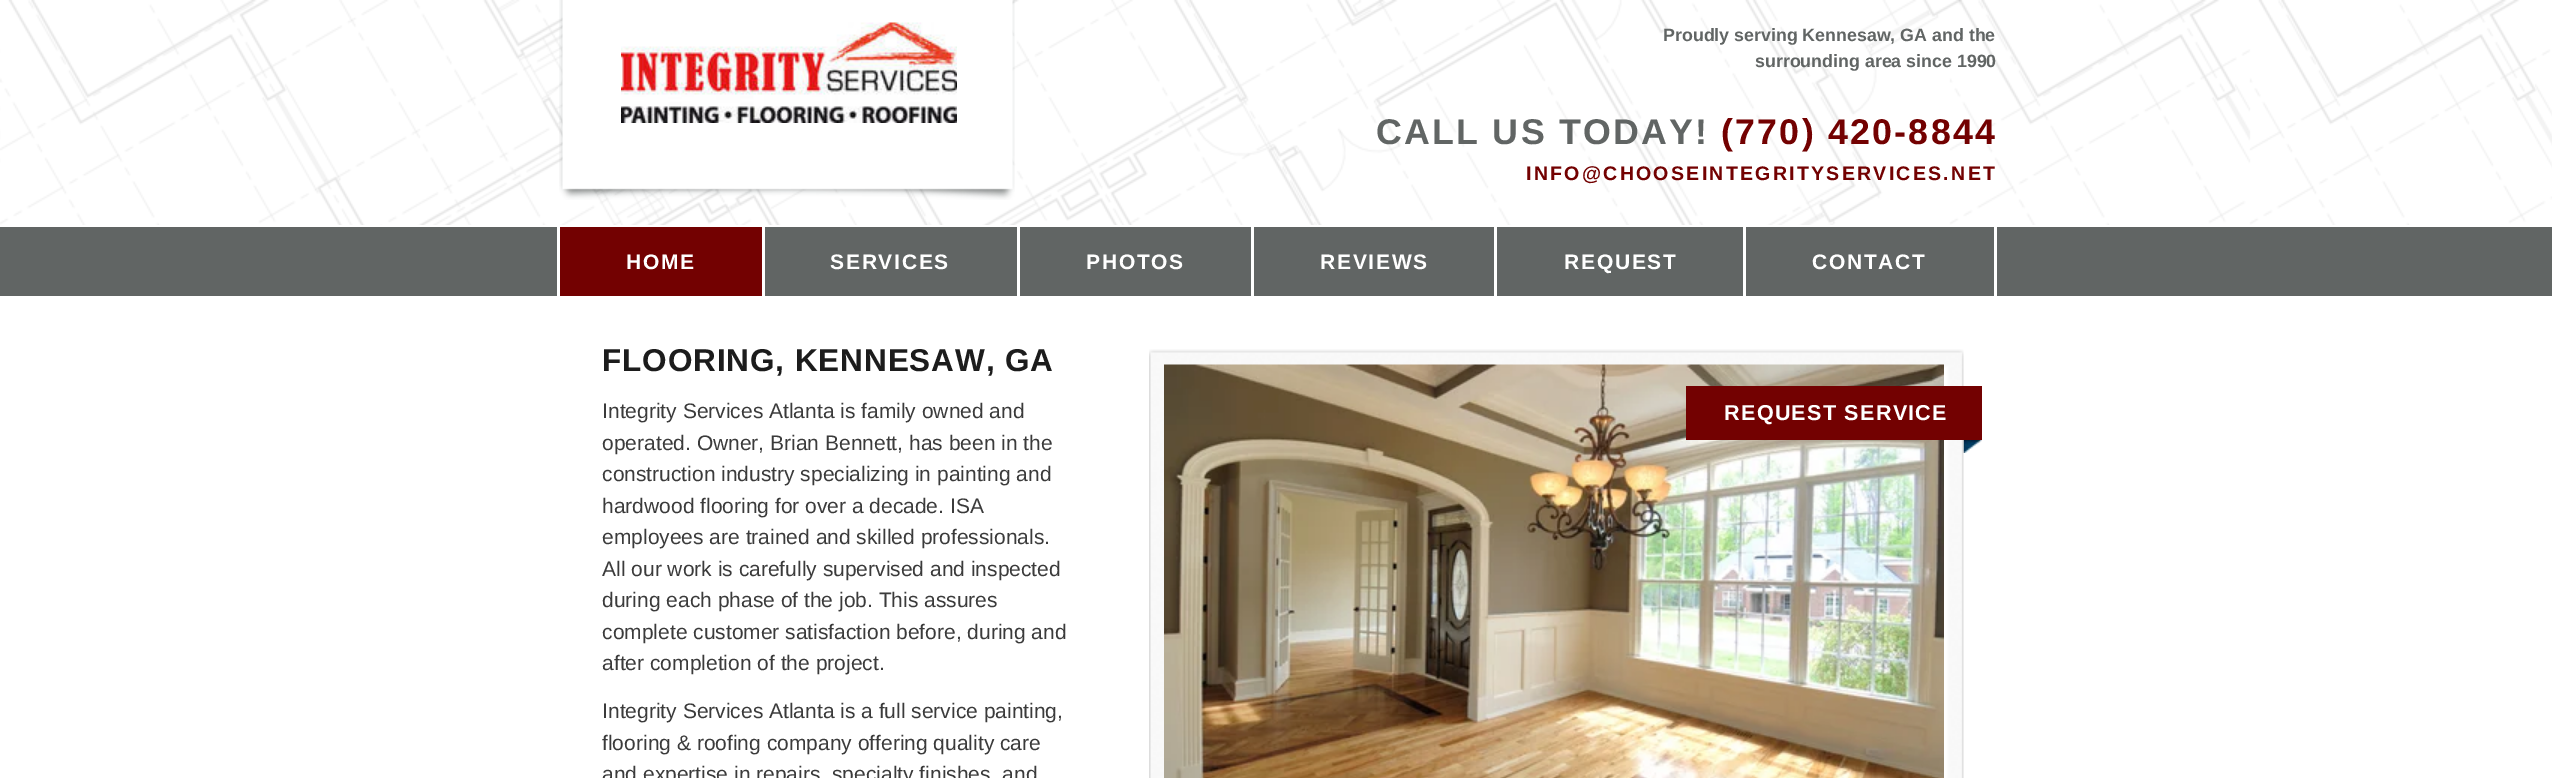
%!PS
<< /PageSize [2552 778] >> setpagedevice
/picture { 5 dict begin { /h /w /y /x /name } { exch def } forall
  gsave x y translate w h scale
  w h 8 [w 0 0 h 0 0] name (r) file false 3 colorimage grestore end } def
0 778 translate 1 -1 scale
4 setmiterlimit
1 setgray
0 0 2552 778 rectfill
(img1.rgb) 0 0 2552 225 picture
(img2.rgb) 559 0 456 200 picture
(img3.rgb) 621 22 336 101 picture
/LiberationSans-Bold [17.8 0 0 -17.8 0 0] selectfont
0.38 0.396 0.392 setrgbcolor
1663 41 moveto (Proudly serving Kennesaw, GA and the) show
1755 67 moveto (surrounding area since 1990) show
/LiberationSans-Bold [35.75 0 0 -35.75 0 0] selectfont
1376 144 moveto 2.25 0 (CALL US TODAY!) ashow
0.451 0.004 0.004 setrgbcolor
1721 144 moveto 2.25 0 (\(770\) 420-8844) ashow
/LiberationSans-Bold [19.6 0 0 -19.6 0 0] selectfont
1526 180 moveto 2.25 0 (INFO@CHOOSEINTEGRITYSERVICES.NET) ashow
0.38 0.396 0.392 setrgbcolor
0 227 2552 69 rectfill
0.451 0.004 0.004 setrgbcolor
560 227 202 69 rectfill
1 setgray
762 227 3 69 rectfill
557 227 3 69 rectfill
/LiberationSans-Bold [21 0 0 -21 0 0] selectfont
626 269 moveto 1.75 0 (HOME) ashow
1017 227 3 69 rectfill
830 269 moveto 1.75 0 (SERVICES) ashow
1251 227 3 69 rectfill
1086 269 moveto 1.75 0 (PHOTOS) ashow
1494 227 3 69 rectfill
1320 269 moveto 1.75 0 (REVIEWS) ashow
1743 227 3 69 rectfill
1564 269 moveto 1.75 0 (REQUEST) ashow
1994 227 3 69 rectfill
1812 269 moveto 1.75 0 (CONTACT) ashow
/LiberationSans-Bold [31.5 0 0 -31.5 0 0] selectfont
0.11 setgray
602 371 moveto 0.9 0 (FLOORING, KENNESAW, GA) ashow
/LiberationSans-Regular [21 0 0 -21 0 0] selectfont
0.231 setgray
602 418 moveto (Integrity Services Atlanta is family owned and) show
602 450 moveto (operated. Owner, Brian Bennett, has been in the) show
602 481 moveto (construction industry specializing in painting and) show
602 513 moveto (hardwood flooring for over a decade. ISA) show
602 544 moveto (employees are trained and skilled professionals.) show
602 576 moveto (All our work is carefully supervised and inspected) show
602 607 moveto (during each phase of the job. This assures) show
602 639 moveto (complete customer satisfaction before, during and) show
602 670 moveto (after completion of the project.) show
602 718 moveto (Integrity Services Atlanta is a full service painting,) show
602 750 moveto (flooring & roofing company offering quality care) show
602 781 moveto (and expertise in repairs, specialty finishes, and) show
(img6.rgb) 1963 440 19 13 picture
(img4.rgb) 1149 349 815 429 picture
(img5.rgb) 1164 364 780 414 picture
0.451 0.004 0.004 setrgbcolor
1686 386 296 54 rectfill
/LiberationSans-Bold [21.6 0 0 -21.6 0 0] selectfont
1 setgray
1724 420 moveto 1.25 0 (REQUEST SERVICE) ashow
showpage
